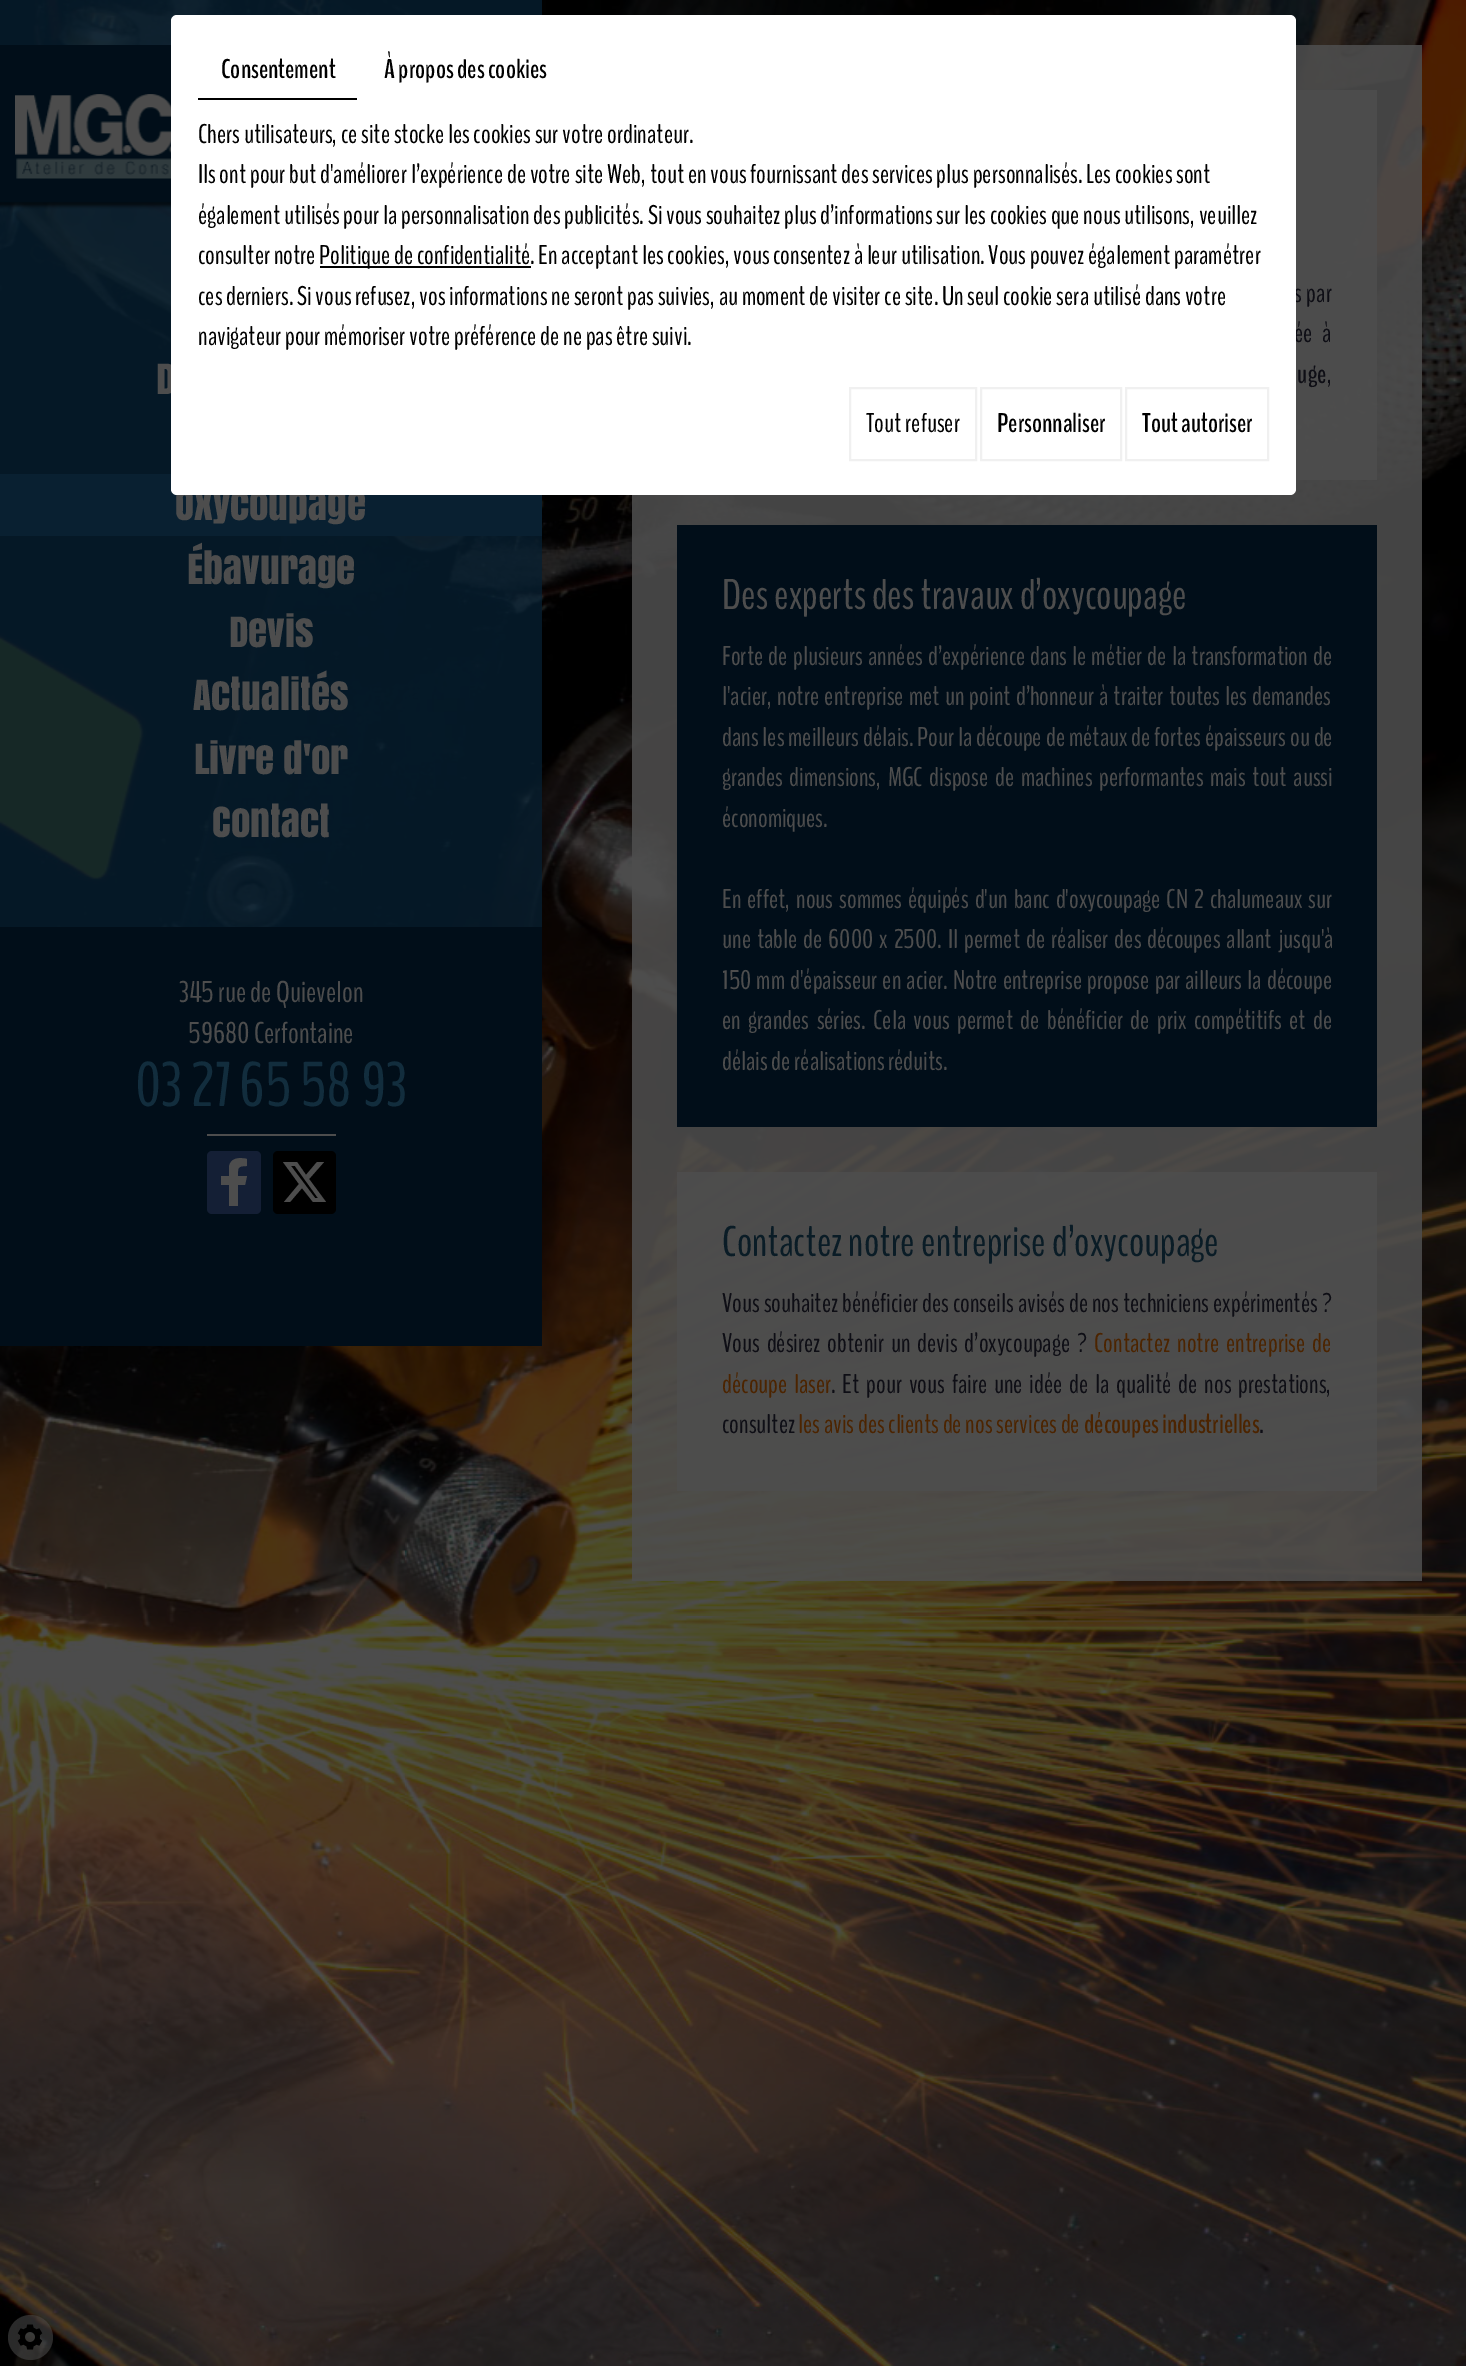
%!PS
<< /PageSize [1466 2366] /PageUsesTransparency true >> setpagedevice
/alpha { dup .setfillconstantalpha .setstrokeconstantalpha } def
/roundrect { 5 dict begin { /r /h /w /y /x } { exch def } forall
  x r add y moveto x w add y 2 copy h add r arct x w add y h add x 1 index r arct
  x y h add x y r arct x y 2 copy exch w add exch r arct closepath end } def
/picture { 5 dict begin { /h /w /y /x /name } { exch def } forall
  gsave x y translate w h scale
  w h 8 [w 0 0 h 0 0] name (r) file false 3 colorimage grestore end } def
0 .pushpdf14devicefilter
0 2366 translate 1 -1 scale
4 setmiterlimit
1 setgray
0 0 1466 2366 rectfill
(img1.rgb) 0 0 1466 2366 picture
0.77 alpha
0.024 0.122 0.192 setrgbcolor
0 0 542 927 rectfill
/Anton-Regular [39 0 0 -39 0 0] selectfont
1 alpha
0.302 setgray
156 394 moveto (D) show
0.035 0.125 0.192 setrgbcolor
0 474 542 62 rectfill
0.302 setgray
175 520 moveto (Oxycoupage) show
0.88 alpha
632 45 790 1536 rectfill
1296 90 81 390 rectfill
/BenchNine-Regular [27 0 0 -27 0 0] selectfont
1 alpha
0.055 0.055 0.082 setrgbcolor
1294 302 moveto 1 0 32 (s par) widthshow
1294 342 moveto 6 0 32 (ée à) widthshow
1 setgray
171 15 1125 480 6 roundrect fill
0 setgray
198 98 159 2 rectfill
/BenchNine-Bold [27 0 0 -27 0 0] selectfont
221 78 moveto (Consentement) show
384 78 moveto (À propos des cookies) show
/BenchNine-Regular [27 0 0 -27 0 0] selectfont
198 143 moveto (Chers utilisateurs, ce site stocke les cookies sur votre ordinateur.) show
198 183 moveto (Ils ont pour but d'améliorer l’expérience de votre site Web, tout en vous fournissant des services plus personnalisés. Les cookies sont) show
198 224 moveto (également utilisés pour la personnalisation des publicités. Si vous souhaitez plus d’informations sur les cookies que nous utilisons, veuillez) show
198 264 moveto (consulter notre) show
320 266 211 2 rectfill
319 264 moveto (Politique de confidentialité. En acceptant les cookies, vous consentez à leur utilisation. Vous pouvez également paramétrer) show
198 305 moveto (ces derniers. Si vous refusez, vos informations ne seront pas suivies, au moment de visiter ce site. Un seul cookie sera utilisé dans votre) show
198 345 moveto (navigateur pour mémoriser votre préférence de ne pas être suivi.) show
0.941 setgray
2 setlinewidth
850 388 126 72 rectstroke
0 setgray
866 432 moveto (Tout refuser) show
0.941 setgray
981 388 140 72 rectstroke
/BenchNine-Bold [27 0 0 -27 0 0] selectfont
0 setgray
997 432 moveto (Personnaliser) show
0.941 setgray
1126 388 142 72 rectstroke
0 setgray
1142 432 moveto (Tout autoriser) show
(img2.rgb) 0 45 171 164 picture
(img3.rgb) 15 94 156 85 picture
/Anton-Regular [39 0 0 -39 0 0] selectfont
0.302 setgray
187 584 moveto (Ébavurage) show
229 647 moveto (Devis) show
193 710 moveto (Actualités) show
194 774 moveto (Livre d'or) show
212 837 moveto (Contact) show
0.004 0.055 0.098 setrgbcolor
0 927 542 419 rectfill
/BenchNine-Regular [30 0 0 -30 0 0] selectfont
0.302 setgray
179 1002 moveto (345 rue de Quievelon) show
188 1043 moveto (59680 Cerfontaine) show
/BenchNine-Regular [63 0 0 -63 0 0] selectfont
0.071 0.176 0.239 setrgbcolor
135 1106 moveto (03 27 65 58 93) show
0.302 setgray
207 1134 129 2 rectfill
0.078 0.122 0.208 setrgbcolor
207 1151 54 63 5 roundrect fill
0.302 setgray
newpath 245 1185 moveto 247 1176 lineto 238 1176 lineto 238 1168 237 1166 247 1166 curveto 247 1159 lineto 239 1157 230 1158 229 1167 curveto 229 1176 lineto 221 1176 lineto 221 1185 lineto 229 1185 lineto 229 1206 lineto 238 1206 lineto 238 1185 lineto closepath fill
0 setgray
273 1151 63 63 5 roundrect fill
0.302 setgray
newpath 317 1162 moveto 324 1162 lineto 309 1179 lineto 326 1202 lineto 313 1202 lineto 302 1188 lineto 290 1202 lineto 284 1202 lineto 299 1184 lineto 283 1162 lineto 297 1162 lineto 306 1175 lineto closepath 315 1198 moveto 318 1198 lineto 295 1166 lineto 291 1166 lineto closepath fill
/BenchNine-Bold [27 0 0 -27 0 0] selectfont
0.055 0.055 0.082 setrgbcolor
1297 383 moveto (uge) show
/BenchNine-Regular [27 0 0 -27 0 0] selectfont
1327 383 moveto (,) show
0.004 0.055 0.098 setrgbcolor
677 525 700 602 rectfill
/BenchNine-Regular [42.75 0 0 -42.75 0 0] selectfont
0.302 setgray
722 609 moveto (Des experts des travaux d’oxycoupage) show
/BenchNine-Regular [27 0 0 -27 0 0] selectfont
722 665 moveto 1.5 0 32 (Forte de plusieurs années d’expérience dans le métier de la transformation de) widthshow
722 705 moveto 1.5 0 32 (l'acier, notre entreprise met un point d’honneur à traiter toutes les demandes) widthshow
722 746 moveto 0.25 0 32 (dans les meilleurs délais. Pour la découpe de métaux de fortes épaisseurs ou de) widthshow
722 786 moveto 3 0 32 (grandes dimensions, MGC dispose de machines performantes mais tout aussi) widthshow
722 827 moveto (économiques.) show
722 908 moveto 2.4 0 32 (En effet, nous sommes équipés d'un banc d'oxycoupage CN 2 chalumeaux sur) widthshow
722 948 moveto 2.25 0 32 (une table de 6000 x 2500. Il permet de réaliser des découpes allant jusqu'à) widthshow
722 989 moveto 1.5 0 32 (150 mm d'épaisseur en acier. Notre entreprise propose par ailleurs la découpe) widthshow
722 1029 moveto 3.75 0 32 (en grandes séries. Cela vous permet de bénéficier de prix compétitifs et de) widthshow
722 1070 moveto (délais de réalisations réduits.) show
0.88 alpha
677 1172 700 319 rectfill
/BenchNine-Regular [42.75 0 0 -42.75 0 0] selectfont
1 alpha
0.039 0.11 0.149 setrgbcolor
722 1256 moveto (Contactez notre entreprise d’oxycoupage) show
/BenchNine-Regular [27 0 0 -27 0 0] selectfont
0.055 0.055 0.082 setrgbcolor
722 1312 moveto 0.25 0 32 (Vous souhaitez bénéficier des conseils avisés de nos techniciens expérimentés ?) widthshow
722 1352 moveto 3.25 0 32 (Vous désirez obtenir un devis d’oxycoupage ?) widthshow
0.298 0.141 0 setrgbcolor
1094 1352 moveto 3.25 0 32 (Contactez notre entreprise de) widthshow
722 1393 moveto 3.1 0 32 (découpe laser) widthshow
0.055 0.055 0.082 setrgbcolor
831 1393 moveto 3.1 0 32 (. Et pour vous faire une idée de la qualité de nos prestations,) widthshow
722 1433 moveto (consultez) show
0.298 0.141 0 setrgbcolor
798 1433 moveto (les avis des clients de nos services de) show
/BenchNine-Bold [27 0 0 -27 0 0] selectfont
1084 1433 moveto (découpes industrielles) show
0.055 0.055 0.082 setrgbcolor
1259 1433 moveto (.) show
0.54 alpha
0.302 setgray
newpath 30.5 2337.5 22.5 0 360 arc closepath fill
1 alpha
(img4.rgb) 17 2324 26 26 picture
.poppdf14devicefilter showpage
